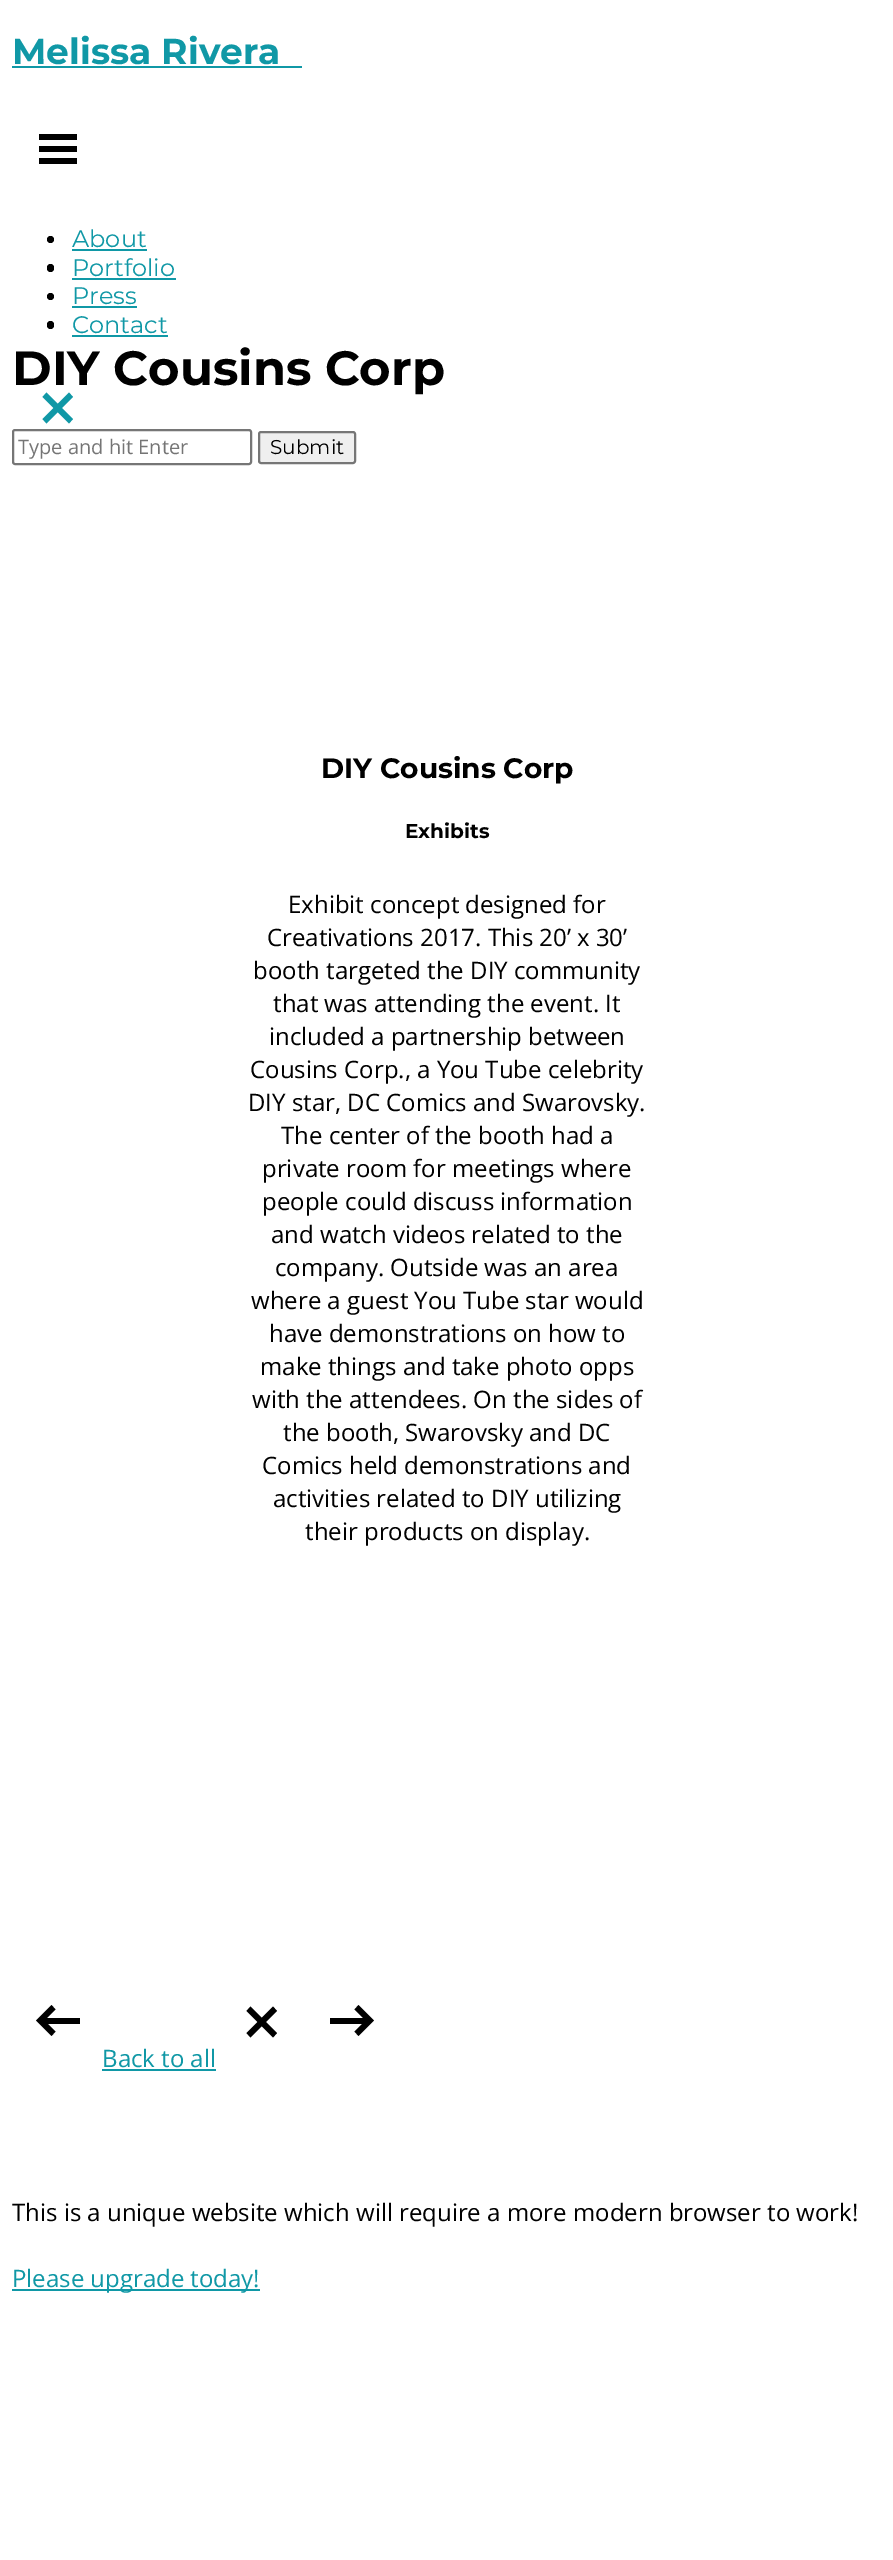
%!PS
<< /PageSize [893 2560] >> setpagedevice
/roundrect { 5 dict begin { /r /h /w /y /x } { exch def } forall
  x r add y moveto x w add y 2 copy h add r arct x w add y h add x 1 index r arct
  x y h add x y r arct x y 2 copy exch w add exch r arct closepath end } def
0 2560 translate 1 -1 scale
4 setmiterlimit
1 setgray
0 0 893 2560 rectfill
/Montserrat-Bold [36 0 0 -36 0 0] selectfont
0.063 0.596 0.651 setrgbcolor
12 64 moveto (Melissa Rivera) show
12 66 290 2 rectfill
0 setgray
39 134 38 6 rectfill
39 146 38 6 rectfill
39 158 38 6 rectfill
newpath 50.5 239.5 3.5 0 360 arc closepath fill
/Montserrat-Regular [24 0 0 -24 0 0] selectfont
0.063 0.596 0.651 setrgbcolor
72 247 moveto (About) show
72 249 75 2 rectfill
0 setgray
47 264 7 8 3.5 roundrect fill
0.063 0.596 0.651 setrgbcolor
72 276 moveto (Portfolio) show
72 278 104 2 rectfill
0 setgray
newpath 50.5 296.5 3.5 0 360 arc closepath fill
0.063 0.596 0.651 setrgbcolor
72 304 moveto (Press) show
72 306 65 2 rectfill
0 setgray
47 321 7 8 3.5 roundrect fill
0.063 0.596 0.651 setrgbcolor
72 333 moveto (Contact) show
72 335 96 2 rectfill
/Montserrat-Bold [48 0 0 -48 0 0] selectfont
0 setgray
12 385 moveto (DIY Cousins Corp) show
0.063 0.596 0.651 setrgbcolor
newpath 46.5 392.5 moveto 73 419 lineto 69 423.5 lineto 42.5 397 lineto closepath fill
newpath 42.5 419 moveto 69 392.5 lineto 73 397 lineto 46.5 423.5 lineto closepath fill
0.463 setgray
2 setlinewidth
13 430 238 34 2 roundrect stroke
/OpenSans-Regular [20 0 0 -20 0 0] selectfont
0.459 setgray
18 454 moveto (Type and hit Enter) show
0.937 setgray
259 432 96 31 2 roundrect gsave fill grestore
0.463 setgray
stroke
/Montserrat-Regular [20 0 0 -20 0 0] selectfont
0 setgray
270 454 moveto (Submit) show
/Montserrat-Bold [28 0 0 -28 0 0] selectfont
321 778 moveto (DIY Cousins Corp) show
/Montserrat-Bold [20 0 0 -20 0 0] selectfont
405 838 moveto (Exhibits) show
/OpenSans-Regular [24 0 0 -24 0 0] selectfont
288 913 moveto (Exhibit concept designed for) show
267 946 moveto (Creativations 2017. This 20’ x 30’) show
253 979 moveto (booth targeted the DIY community) show
273 1012 moveto (that was attending the event. It) show
269 1045 moveto (included a partnership between) show
250 1078 moveto (Cousins Corp., a You Tube celebrity) show
248 1111 moveto (DIY star, DC Comics and Swarovsky.) show
281 1144 moveto (The center of the booth had a) show
262 1177 moveto (private room for meetings where) show
262 1210 moveto (people could discuss information) show
271 1243 moveto (and watch videos related to the) show
275 1276 moveto (company. Outside was an area) show
251 1309 moveto (where a guest You Tube star would) show
269 1342 moveto (have demonstrations on how to) show
260 1375 moveto (make things and take photo opps) show
252 1408 moveto (with the attendees. On the sides of) show
283 1441 moveto (the booth, Swarovsky and DC) show
262 1474 moveto (Comics held demonstrations and) show
273 1507 moveto (activities related to DIY utilizing) show
305 1540 moveto (their products on display.) show
newpath 36 2020.5 moveto 51.5 2036 lineto 55.5 2031.5 lineto 44.5 2020.5 lineto 55.5 2009.5 lineto 51.5 2005 lineto 40 2016.5 lineto fill
newpath 374 2020.5 moveto 358.5 2005 lineto 354.5 2009.5 lineto 365.5 2020.5 lineto 354.5 2031.5 lineto 358.5 2036 lineto 370 2024.5 lineto fill
42 2018 38 6 rectfill
330 2018 38 6 rectfill
0.063 0.596 0.651 setrgbcolor
102 2067 moveto (Back to all) show
102 2069 114 2 rectfill
0 setgray
newpath 250.5 2006.5 moveto 277 2033 lineto 273 2037.5 lineto 246.5 2011 lineto closepath fill
newpath 246.5 2033 moveto 273 2006.5 lineto 277 2011 lineto 250.5 2037.5 lineto closepath fill
12 2221 moveto (This is a unique website which will require a more modern browser to work!) show
0.063 0.596 0.651 setrgbcolor
12 2289 248 2 rectfill
12 2287 moveto (Please upgrade today!) show
showpage
